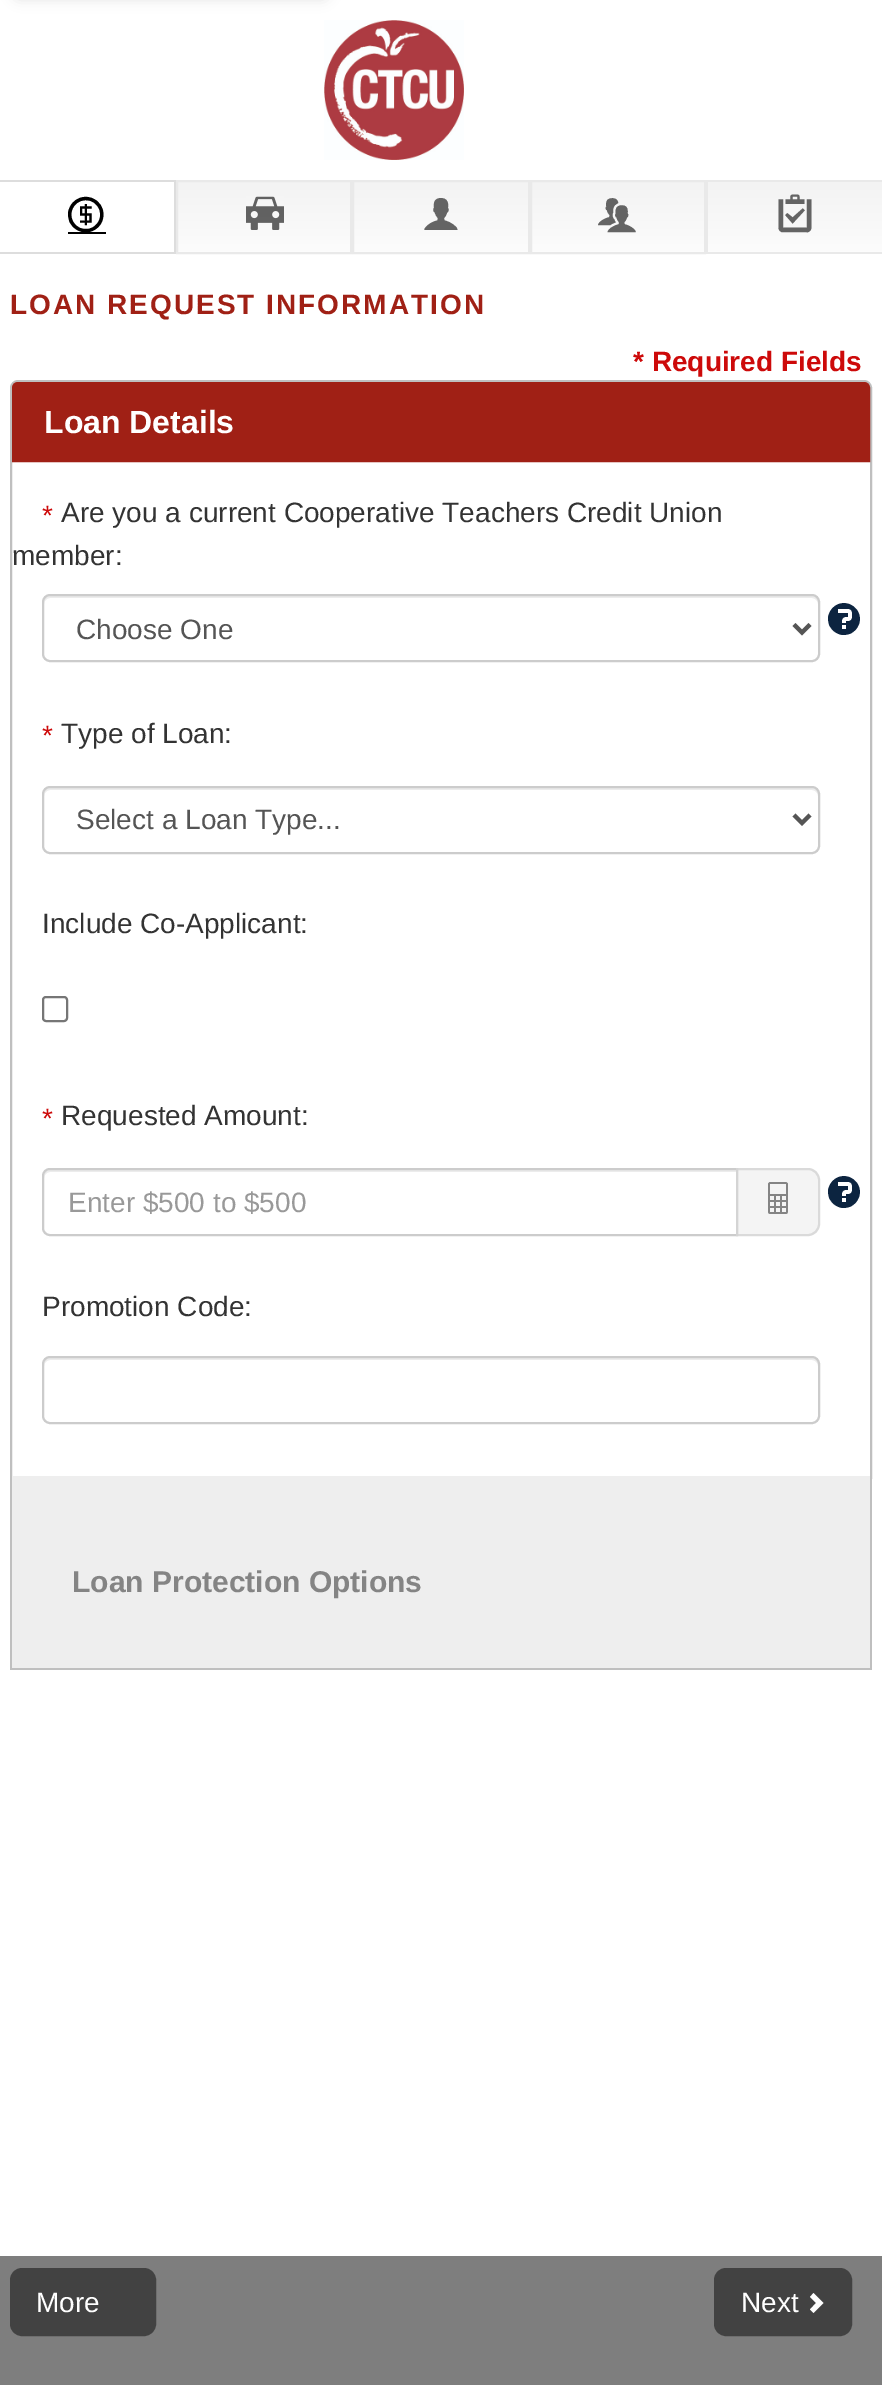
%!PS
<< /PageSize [882 2385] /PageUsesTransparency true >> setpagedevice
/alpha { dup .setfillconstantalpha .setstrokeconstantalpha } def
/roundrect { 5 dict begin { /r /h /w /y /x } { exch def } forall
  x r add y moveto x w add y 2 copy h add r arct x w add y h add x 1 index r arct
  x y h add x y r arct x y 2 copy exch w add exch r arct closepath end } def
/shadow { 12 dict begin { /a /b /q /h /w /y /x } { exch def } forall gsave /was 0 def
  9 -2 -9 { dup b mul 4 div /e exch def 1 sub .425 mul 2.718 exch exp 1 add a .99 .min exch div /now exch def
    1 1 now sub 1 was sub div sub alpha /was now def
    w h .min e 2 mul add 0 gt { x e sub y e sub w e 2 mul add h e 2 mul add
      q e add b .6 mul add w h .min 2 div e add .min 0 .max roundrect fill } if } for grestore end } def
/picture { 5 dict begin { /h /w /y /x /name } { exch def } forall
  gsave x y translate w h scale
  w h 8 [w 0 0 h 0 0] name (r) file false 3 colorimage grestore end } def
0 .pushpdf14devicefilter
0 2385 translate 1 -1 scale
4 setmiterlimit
1 setgray
0 0 882 2385 rectfill
0 setgray
12 -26 318 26 8 6 0.1 shadow
(img1.rgb) 324 20 140 140 picture
0.867 setgray
0 180 176 2 rectfill
174 180 2 74 rectfill
0 252 176 2 rectfill
0 setgray
68 232 38 2 rectfill
/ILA-Regular [38 0 0 -38 0 0] selectfont
68 230 moveto (#) show
gsave newpath 178 182 moveto 350 182 lineto 350 252 lineto 178 252 lineto closepath clip newpath
<< /ShadingType 2 /ColorSpace /DeviceRGB /Coords [264 182 264 252] /Extend [true true] /Function << /FunctionType 2 /Domain [0 1] /C0 [0.953 0.953 0.953] /C1 [0.988 0.988 0.988] /N 1 >> >> shfill grestore
0.914 setgray
2 setlinewidth
177 181 174 72 rectstroke
(img2.rgb) 246 196 38 34 picture
gsave newpath 354 182 moveto 528 182 lineto 528 252 lineto 354 252 lineto closepath clip newpath
<< /ShadingType 2 /ColorSpace /DeviceRGB /Coords [441 182 441 252] /Extend [true true] /Function << /FunctionType 2 /Domain [0 1] /C0 [0.953 0.953 0.953] /C1 [0.988 0.988 0.988] /N 1 >> >> shfill grestore
353 181 176 72 rectstroke
0.392 setgray
422 230 moveto (,) show
gsave newpath 532 182 moveto 704 182 lineto 704 252 lineto 532 252 lineto closepath clip newpath
<< /ShadingType 2 /ColorSpace /DeviceRGB /Coords [618 182 618 252] /Extend [true true] /Function << /FunctionType 2 /Domain [0 1] /C0 [0.953 0.953 0.953] /C1 [0.988 0.988 0.988] /N 1 >> >> shfill grestore
0.914 setgray
531 181 174 72 rectstroke
0.392 setgray
598 230 moveto (-) show
gsave newpath 708 182 moveto 882 182 lineto 882 252 lineto 708 252 lineto closepath clip newpath
<< /ShadingType 2 /ColorSpace /DeviceRGB /Coords [795 182 795 252] /Extend [true true] /Function << /FunctionType 2 /Domain [0 1] /C0 [0.953 0.953 0.953] /C1 [0.988 0.988 0.988] /N 1 >> >> shfill grestore
0.914 setgray
706 180 176 2 rectfill
706 252 176 2 rectfill
706 180 2 74 rectfill
0.392 setgray
776 230 moveto (!) show
/LiberationSans-Bold [28 0 0 -28 0 0] selectfont
0.627 0.125 0.082 setrgbcolor
10 314 moveto 2 0 (LOAN REQUEST INFORMATION) ashow
0.804 0.039 0.039 setrgbcolor
633 371 moveto (* Required Fields) show
0.749 setgray
11 381 860 1104 7 roundrect stroke
0.627 0.125 0.082 setrgbcolor
newpath 18 383 moveto 864 383 lineto 867 383 869 385 869 388 curveto 869 461 lineto 13 461 lineto 13 388 lineto 13 385 15 383 18 383 curveto closepath gsave fill grestore
stroke
/LiberationSans-Bold [32 0 0 -32 0 0] selectfont
1 setgray
44 433 moveto (Loan Details) show
/LiberationSans-Regular [28 0 0 -28 0 0] selectfont
0.804 0.039 0.039 setrgbcolor
42 525 moveto (*) show
0.2 setgray
61 522 moveto (Are you a current Cooperative Teachers Credit Union) show
12 565 moveto (member:) show
0.925 setgray
newpath 50 598 moveto 812 598 lineto 815 598 818 601 818 604 curveto 818 602 lineto 818 599 815 596 812 596 curveto 50 596 lineto 47 596 44 599 44 602 curveto 44 604 lineto 44 601 47 598 50 598 curveto closepath fill
0.8 setgray
43 595 776 66 7 roundrect stroke
0.333 setgray
4 setlinewidth
newpath 794 624.5 moveto 802 632.5 lineto 810 624.5 lineto stroke
76 639 moveto (Choose One) show
/ILA-Regular [32 0 0 -32 0 0] selectfont
0.047 0.141 0.251 setrgbcolor
828 633 moveto (?) show
/LiberationSans-Regular [28 0 0 -28 0 0] selectfont
0.804 0.039 0.039 setrgbcolor
42 745 moveto (*) show
0.2 setgray
61 743 moveto (Type of Loan:) show
0.925 setgray
newpath 50 790 moveto 812 790 lineto 815 790 818 793 818 796 curveto 818 794 lineto 818 791 815 788 812 788 curveto 50 788 lineto 47 788 44 791 44 794 curveto 44 796 lineto 44 793 47 790 50 790 curveto closepath fill
0.8 setgray
2 setlinewidth
43 787 776 66 7 roundrect stroke
0.333 setgray
4 setlinewidth
newpath 794 815 moveto 802 823 lineto 810 815 lineto stroke
76 829 moveto (Select a Loan Type...) show
0.2 setgray
42 933 moveto (Include Co-Applicant:) show
0.463 setgray
2 setlinewidth
43 997 24 24 3 roundrect stroke
0.804 0.039 0.039 setrgbcolor
42 1128 moveto (*) show
0.2 setgray
61 1125 moveto (Requested Amount:) show
0.925 setgray
newpath 50 1172 moveto 736 1172 lineto 736 1170 lineto 50 1170 lineto 47 1170 44 1173 44 1176 curveto 44 1178 lineto 44 1175 47 1172 50 1172 curveto closepath fill
0.8 setgray
newpath 50 1169 moveto 737 1169 lineto 737 1235 lineto 50 1235 lineto 46 1235 43 1232 43 1228 curveto 43 1176 lineto 43 1172 46 1169 50 1169 curveto closepath stroke
0.6 setgray
68 1212 moveto (Enter $500 to $500) show
0.65 alpha
0.933 setgray
newpath 736 1168 moveto 808 1168 lineto 814.5 1168 820 1173.5 820 1180 curveto 820 1224 lineto 820 1230.5 814.5 1236 808 1236 curveto 736 1236 lineto closepath fill
0.8 setgray
newpath 737 1169 moveto 808 1169 lineto 814 1169 819 1174 819 1180 curveto 819 1224 lineto 819 1230 814 1235 808 1235 curveto 737 1235 lineto closepath stroke
/ILA-Regular [32 0 0 -32 0 0] selectfont
1 alpha
0.518 setgray
762 1212 moveto (&) show
0.047 0.141 0.251 setrgbcolor
828 1206 moveto (?) show
/LiberationSans-Regular [28 0 0 -28 0 0] selectfont
0.2 setgray
42 1316 moveto (Promotion Code:) show
0.925 setgray
newpath 50 1360 moveto 812 1360 lineto 815 1360 818 1363 818 1366 curveto 818 1364 lineto 818 1361 815 1358 812 1358 curveto 50 1358 lineto 47 1358 44 1361 44 1364 curveto 44 1366 lineto 44 1363 47 1360 50 1360 curveto closepath fill
0.8 setgray
43 1357 776 66 7 roundrect stroke
0.933 setgray
12 1476 858 192 rectfill
0.749 setgray
870 1476 2 194 rectfill
10 1668 862 2 rectfill
10 1476 2 194 rectfill
/LiberationSans-Bold [30 0 0 -30 0 0] selectfont
0.518 setgray
72 1592 moveto (Loan Protection Options) show
0.494 setgray
0 2256 882 129 rectfill
0.259 setgray
11 2269 144 66 11 roundrect gsave fill grestore
stroke
/LiberationSans-Regular [28 0 0 -28 0 0] selectfont
1 setgray
36 2312 moveto (More) show
0.259 setgray
715 2269 136 66 11 roundrect gsave fill grestore
stroke
1 setgray
741 2312 moveto (Next) show
newpath 813.5 2293 moveto 823.5 2303 lineto 813.5 2313 lineto 810 2309.5 lineto 816 2303 lineto 810 2297 lineto closepath fill
.poppdf14devicefilter showpage
